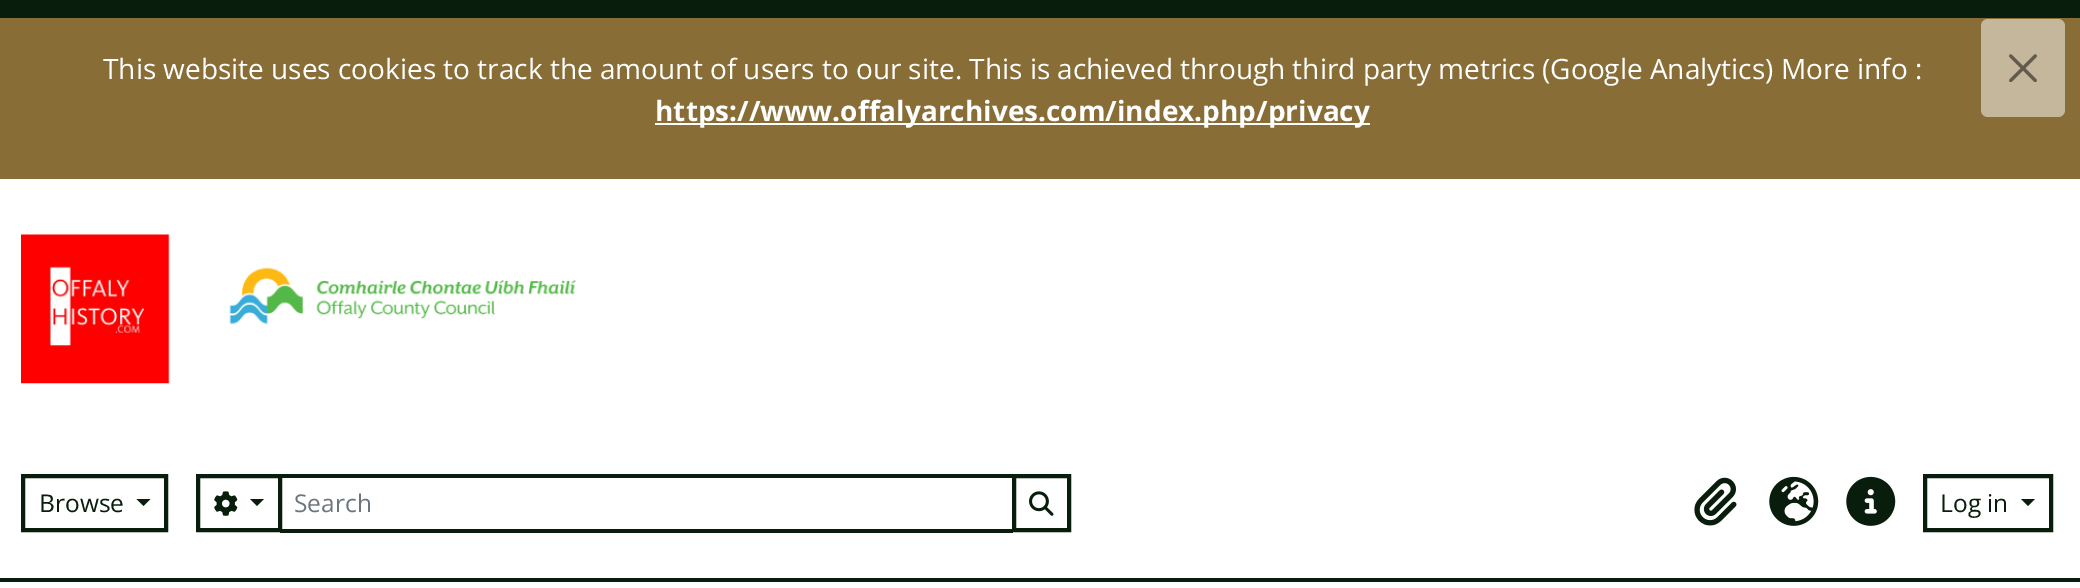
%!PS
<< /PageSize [2080 588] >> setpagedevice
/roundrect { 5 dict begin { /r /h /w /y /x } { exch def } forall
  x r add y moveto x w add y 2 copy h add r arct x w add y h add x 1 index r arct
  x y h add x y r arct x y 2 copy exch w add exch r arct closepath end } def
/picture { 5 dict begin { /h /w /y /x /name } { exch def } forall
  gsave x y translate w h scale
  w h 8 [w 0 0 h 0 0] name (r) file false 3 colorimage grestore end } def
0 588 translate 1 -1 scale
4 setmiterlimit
1 setgray
0 0 2080 588 rectfill
0.035 0.114 0.047 setrgbcolor
0 0 2080 18 rectfill
0.533 0.431 0.212 setrgbcolor
0 18 2080 161 rectfill
/OpenSans-Regular [28 0 0 -28 0 0] selectfont
1 setgray
103 79 moveto (This website uses cookies to track the amount of users to our site. This is achieved through third party metrics \(Google Analytics\) More info :) show
655 123 715 2 rectfill
/OpenSans-Bold [28 0 0 -28 0 0] selectfont
655 121 moveto (https://www.offalyarchives.com/index.php/privacy) show
0.769 0.718 0.608 setrgbcolor
1981 19 84 98 7 roundrect fill
(img1.rgb) 2009 54 28 28 picture
(img2.rgb) 21 234 555 150 picture
0.035 0.114 0.047 setrgbcolor
4 setlinewidth
23 476 143 54 rectstroke
/OpenSans-Regular [24.5 0 0 -24.5 0 0] selectfont
39 512 moveto (Browse) show
newpath 136.5 499 moveto 150.5 499 lineto 143.5 506 lineto closepath fill
280 474 733 4 rectfill
280 529 733 4 rectfill
198 476 82 54 rectstroke
(img3.rgb) 214 491 24 25 picture
newpath 250 499 moveto 264 499 lineto 257 506 lineto closepath fill
0.424 0.459 0.49 setrgbcolor
294 512 moveto (Search) show
0.035 0.114 0.047 setrgbcolor
1014 476 55 54 rectstroke
(img4.rgb) 1029 491 25 25 picture
(img5.rgb) 1694 477 43 49 picture
(img6.rgb) 1769 476 50 50 picture
(img7.rgb) 1846 476 50 50 picture
1925 476 126 54 rectstroke
1940 512 moveto (Log in) show
newpath 2021 499 moveto 2035 499 lineto 2028 506 lineto closepath fill
0 578 2080 4 rectfill
showpage
